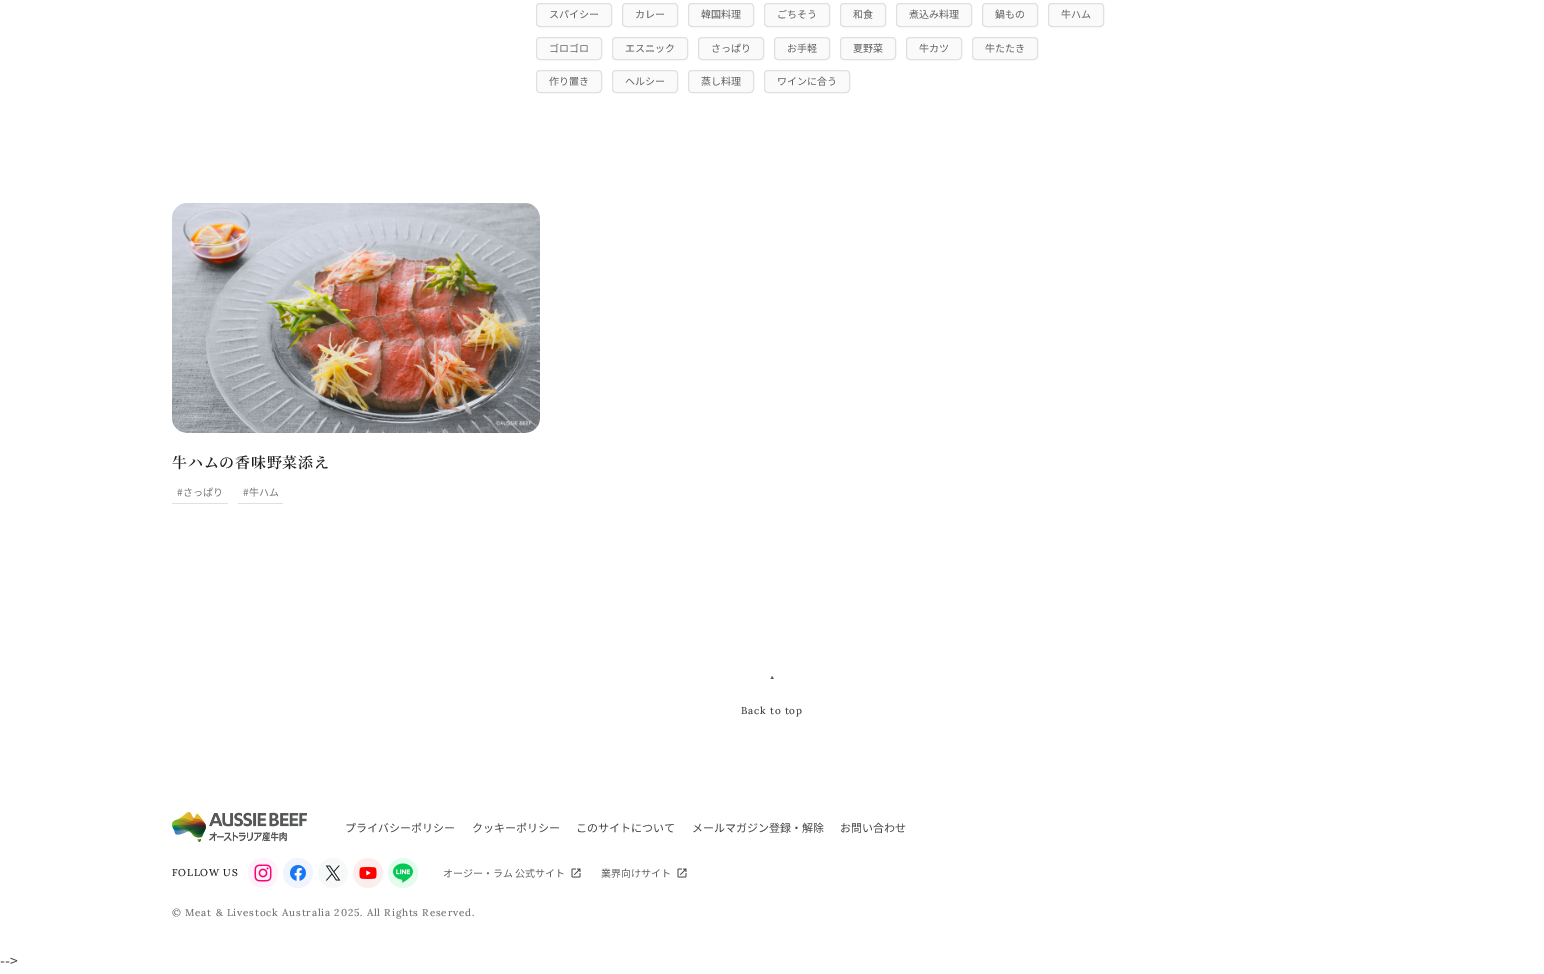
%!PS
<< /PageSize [1544 974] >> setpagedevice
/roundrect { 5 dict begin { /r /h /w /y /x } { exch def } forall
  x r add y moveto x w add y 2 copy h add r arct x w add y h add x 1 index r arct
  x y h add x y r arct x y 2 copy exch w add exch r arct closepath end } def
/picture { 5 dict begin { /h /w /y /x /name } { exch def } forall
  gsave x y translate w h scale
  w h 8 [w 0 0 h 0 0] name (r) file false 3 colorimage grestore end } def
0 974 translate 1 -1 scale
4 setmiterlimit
1 setgray
0 0 1544 974 rectfill
0.98 setgray
536.5 3.5 75 23 3.5 roundrect gsave fill grestore
0.878 setgray
stroke
/NotoSansJP-Regular [10 0 0 -10 0 0] selectfont
0.38 setgray
549 18 moveto (スパイシー) show
0.98 setgray
622.5 3.5 55 23 3.5 roundrect gsave fill grestore
0.878 setgray
stroke
0.38 setgray
635 18 moveto (カレー) show
0.98 setgray
688.5 3.5 65 23 3.5 roundrect gsave fill grestore
0.878 setgray
stroke
0.38 setgray
701 18 moveto (韓国料理) show
0.98 setgray
764.5 3.5 65 23 3.5 roundrect gsave fill grestore
0.878 setgray
stroke
0.38 setgray
777 18 moveto (ごちそう) show
0.98 setgray
840.5 3.5 45 23 3.5 roundrect gsave fill grestore
0.878 setgray
stroke
0.38 setgray
853 18 moveto (和食) show
0.98 setgray
896.5 3.5 75 23 3.5 roundrect gsave fill grestore
0.878 setgray
stroke
0.38 setgray
909 18 moveto (煮込み料理) show
0.98 setgray
982.5 3.5 55 23 3.5 roundrect gsave fill grestore
0.878 setgray
stroke
0.38 setgray
995 18 moveto (鍋もの) show
0.98 setgray
1048.5 3.5 55 23 3.5 roundrect gsave fill grestore
0.878 setgray
stroke
0.38 setgray
1061 18 moveto (牛ハム) show
0.98 setgray
536.5 37.5 65 22 3.5 roundrect gsave fill grestore
0.878 setgray
stroke
0.38 setgray
549 52 moveto (ゴロゴロ) show
0.98 setgray
612.5 37.5 75 22 3.5 roundrect gsave fill grestore
0.878 setgray
stroke
0.38 setgray
625 52 moveto (エスニック) show
0.98 setgray
698.5 37.5 65 22 3.5 roundrect gsave fill grestore
0.878 setgray
stroke
0.38 setgray
711 52 moveto (さっぱり) show
0.98 setgray
774.5 37.5 55 22 3.5 roundrect gsave fill grestore
0.878 setgray
stroke
0.38 setgray
787 52 moveto (お手軽) show
0.98 setgray
840.5 37.5 55 22 3.5 roundrect gsave fill grestore
0.878 setgray
stroke
0.38 setgray
853 52 moveto (夏野菜) show
0.98 setgray
906.5 37.5 55 22 3.5 roundrect gsave fill grestore
0.878 setgray
stroke
0.38 setgray
919 52 moveto (牛カツ) show
0.98 setgray
972.5 37.5 65 22 3.5 roundrect gsave fill grestore
0.878 setgray
stroke
0.38 setgray
985 52 moveto (牛たたき) show
0.98 setgray
536.5 70.5 65 22 3.5 roundrect gsave fill grestore
0.878 setgray
stroke
0.38 setgray
549 85 moveto (作り置き) show
0.98 setgray
612.5 70.5 65 22 3.5 roundrect gsave fill grestore
0.878 setgray
stroke
0.38 setgray
625 85 moveto (ヘルシー) show
0.98 setgray
688.5 70.5 65 22 3.5 roundrect gsave fill grestore
0.878 setgray
stroke
0.38 setgray
701 85 moveto (蒸し料理) show
0.98 setgray
764.5 70.5 85 22 3.5 roundrect gsave fill grestore
0.878 setgray
stroke
0.38 setgray
777 85 moveto (ワインに合う) show
(img1.rgb) 172 203 368 230 picture
/NotoSerifJP-SemiBold [15 0 0 -15 0 0] selectfont
0.129 setgray
172 468 moveto 0.75 0 (牛ハムの香味野菜添え) ashow
0.878 setgray
172 503 56 1 rectfill
/NotoSansJP-Regular [10 0 0 -10 0 0] selectfont
0.459 setgray
177 496 moveto (#さっぱり) show
0.878 setgray
238 503 45 1 rectfill
0.459 setgray
243 496 moveto (#牛ハム) show
0.38 setgray
newpath 774 679 moveto 772 676 lineto 770.5 679 lineto 772 679 lineto 772 696 lineto 772 679 lineto closepath fill
/Lora-Medium [10 0 0 -10 0 0] selectfont
0.259 setgray
741 714 moveto 0.8 0 (Back to top) ashow
(img2.rgb) 172 812 135 30 picture
/NotoSansJP-Regular [11 0 0 -11 0 0] selectfont
345 832 moveto (プライバシーポリシー) show
472 832 moveto (クッキーポリシー) show
576 832 moveto (このサイトについて) show
692 832 moveto (メールマガジン登録・解除) show
840 832 moveto (お問い合わせ) show
/Lora-Medium [10 0 0 -10 0 0] selectfont
0.129 setgray
172 876 moveto 0.8 0 (FOLLOW US) ashow
0.996 0.953 0.984 setrgbcolor
newpath 263 873 15 0 360 arc closepath fill
(img3.rgb) 254 864 18 18 picture
0.941 0.961 0.992 setrgbcolor
newpath 298 873 15 0 360 arc closepath fill
(img4.rgb) 290 865 16 16 picture
0.969 0.976 0.976 setrgbcolor
newpath 333 873 15 0 360 arc closepath fill
(img5.rgb) 325 865 16 16 picture
0.988 0.933 0.929 setrgbcolor
newpath 368 873 15 0 360 arc closepath fill
(img6.rgb) 359 867 18 12 picture
0.89 0.988 0.929 setrgbcolor
newpath 403 873 15 0 360 arc closepath fill
(img7.rgb) 393 863 20 20 picture
/NotoSansJP-Regular [10 0 0 -10 0 0] selectfont
0.38 setgray
443 877 moveto (オージー・ラム 公式サイト) show
(img8.rgb) 571 868 10 10 picture
601 877 moveto (業界向けサイト) show
(img8.rgb) 677 868 10 10 picture
/Lora-Medium [10 0 0 -10 0 0] selectfont
0.459 setgray
172 916 moveto 0.8 0 (© Meat & Livestock Australia 2025. All Rights Reserved.) ashow
/NotoSansJP-Regular [14 0 0 -14 0 0] selectfont
0.259 setgray
0 966 moveto (-->) show
showpage
